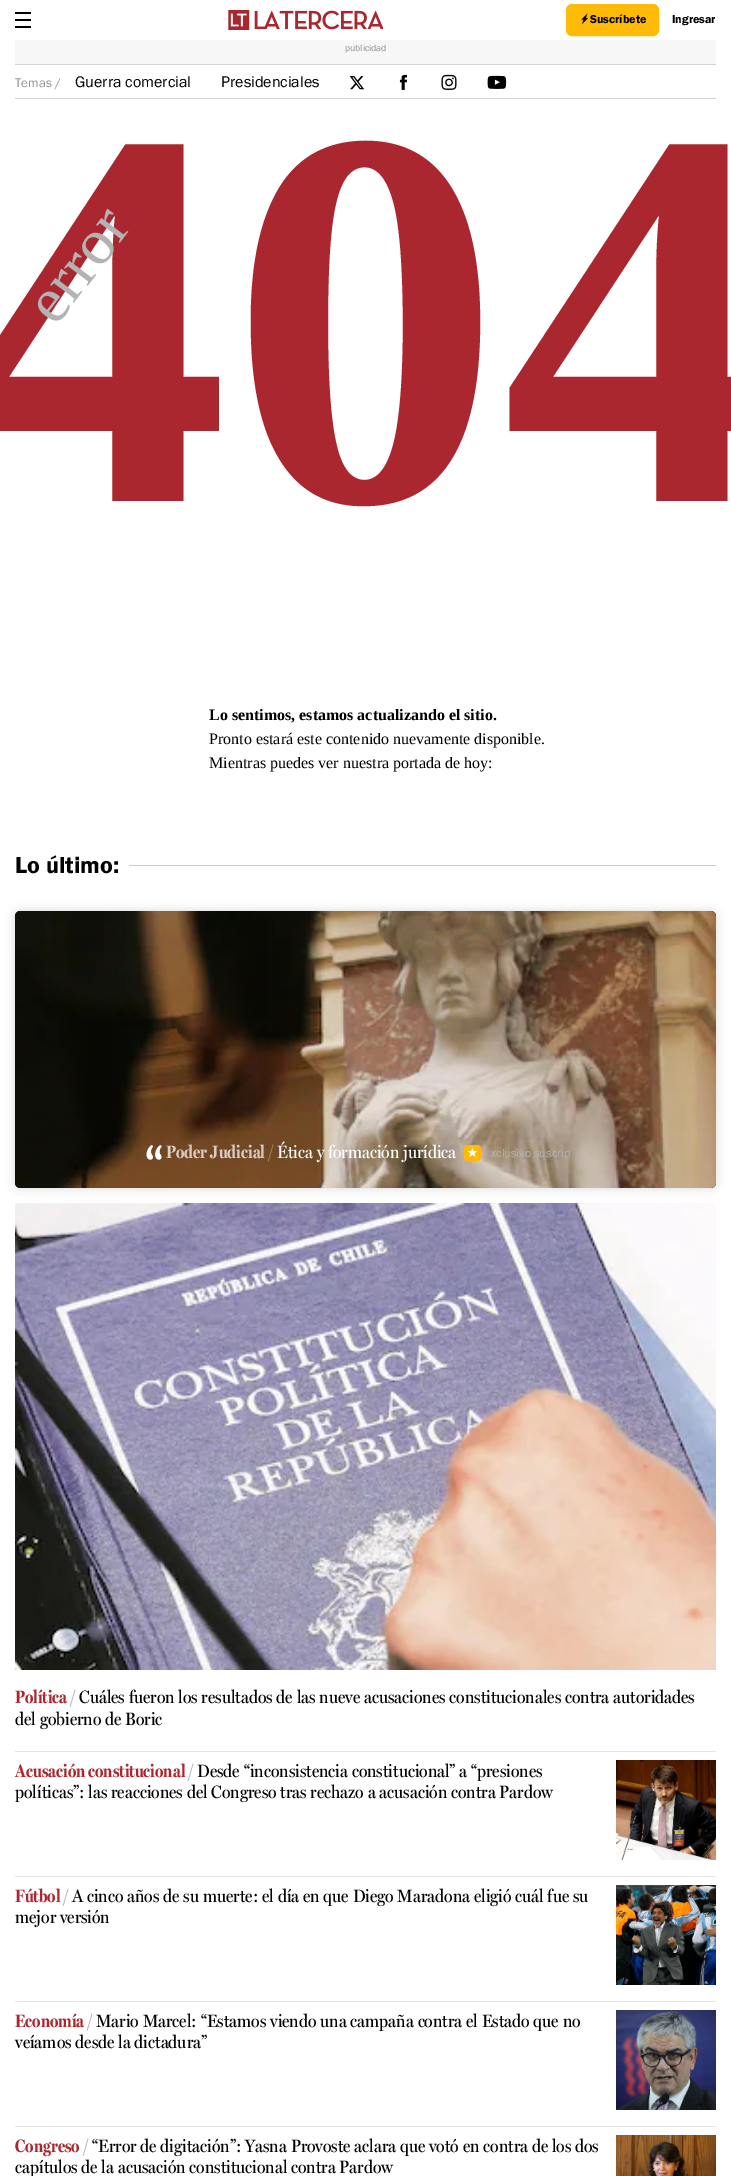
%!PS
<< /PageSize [731 2176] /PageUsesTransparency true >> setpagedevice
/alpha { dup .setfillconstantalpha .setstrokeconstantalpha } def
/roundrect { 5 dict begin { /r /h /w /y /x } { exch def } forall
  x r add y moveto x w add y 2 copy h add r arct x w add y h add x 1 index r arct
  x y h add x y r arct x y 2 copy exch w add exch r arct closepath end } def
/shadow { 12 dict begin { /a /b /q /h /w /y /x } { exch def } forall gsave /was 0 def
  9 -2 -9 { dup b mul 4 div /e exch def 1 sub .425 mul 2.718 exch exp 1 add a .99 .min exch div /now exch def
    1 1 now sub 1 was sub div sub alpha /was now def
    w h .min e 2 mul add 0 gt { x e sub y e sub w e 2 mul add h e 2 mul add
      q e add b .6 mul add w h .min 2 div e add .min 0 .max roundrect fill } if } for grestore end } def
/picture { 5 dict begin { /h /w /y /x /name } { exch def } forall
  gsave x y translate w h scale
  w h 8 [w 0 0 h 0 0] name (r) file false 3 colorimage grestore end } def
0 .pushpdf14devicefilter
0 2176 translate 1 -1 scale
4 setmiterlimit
1 setgray
0 0 731 2176 rectfill
0 setgray
15 19 16 2 rectfill
15 12 16 2 rectfill
15 26 16 2 rectfill
(img1.rgb) 228 10 155 20 picture
1 0.729 0.027 setrgbcolor
566.5 4.5 92 31 5.5 roundrect gsave fill grestore
stroke
(img2.rgb) 581 13 8 12 picture
/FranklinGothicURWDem-Regular [12 0 0 -12 0 0] selectfont
0 setgray
590 23 moveto (Suscríbete) show
672 23 moveto (Ingresar) show
0.969 setgray
15 40 701 24 rectfill
/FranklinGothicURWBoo-Regular [9.5 0 0 -9.5 0 0] selectfont
0.58 setgray
345 51 moveto (publicidad) show
0.827 setgray
15 64 701 1 rectfill
15 98 701 1 rectfill
/FranklinGothicURWBoo-Regular [13 0 0 -13 0 0] selectfont
0.58 setgray
15 87 moveto (Temas /) show
/FranklinGothicURWBoo-Regular [16 0 0 -16 0 0] selectfont
0 setgray
75 87 moveto (Guerra comercial) show
221 87 moveto (Presidenciales) show
(img3.rgb) 349 76 16 14 picture
(img4.rgb) 399 74 8 16 picture
(img5.rgb) 441 74 16 16 picture
(img6.rgb) 487 75 20 14 picture
/LiberationSerif-Bold [544 0 0 -544 0 0] selectfont
0.667 0.153 0.184 setrgbcolor
-42 501 moveto (404) show
/LiberationSerif-Regular [65 0 0 -65 0 0] selectfont
0.702 setgray
gsave 56 327 translate -52.8 rotate 0 0 moveto (error) show grestore
/LiberationSerif-Bold [16 0 0 -16 0 0] selectfont
0 setgray
209 720 moveto (Lo sentimos, estamos actualizando el sitio.) show
/LiberationSerif-Regular [16 0 0 -16 0 0] selectfont
209 744 moveto (Pronto estará este contenido nuevamente disponible.) show
209 768 moveto (Mientras puedes ver nuestra portada de hoy:) show
/FranklinGothicURWDem-Regular [24 0 0 -24 0 0] selectfont
15 873 moveto (Lo último:) show
0.8 setgray
129 865 587 1 rectfill
0 setgray
15 911 701 277 5 5 0.15 shadow
(img7.rgb) 15 911 701 277 picture
(img8.rgb) 146 1145 16 15 picture
/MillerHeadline-Bold [18 0 0 -18 0 0] selectfont
0.847 0.804 0.765 setrgbcolor
166 1158 moveto (Poder Judicial) show
0.612 0.502 0.4 setrgbcolor
268 1158 moveto (/) show
/MillerHeadline-Regular [18 0 0 -18 0 0] selectfont
1 setgray
277 1158 moveto (Ética y formación jurídica) show
1 0.729 0.027 setrgbcolor
464 1145 17 16 4 roundrect fill
(img9.rgb) 467 1147 11 10 picture
/FranklinGothicURWBoo-Regular [12 0 0 -12 0 0] selectfont
0.702 setgray
491 1157 moveto (xclusivo suscrip) show
(img10.rgb) 15 1203 701 467 picture
/MillerHeadline-Bold [18 0 0 -18 0 0] selectfont
0.667 0.153 0.184 setrgbcolor
15 1703 moveto (Política) show
0.702 setgray
70 1703 moveto (/) show
/MillerHeadline-Regular [18 0 0 -18 0 0] selectfont
0 setgray
79 1703 moveto (Cuáles fueron los resultados de las nueve acusaciones constitucionales contra autoridades) show
15 1725 moveto (del gobierno de Boric) show
0.902 setgray
15 1751 701 1 rectfill
/MillerHeadline-Bold [18 0 0 -18 0 0] selectfont
0.667 0.153 0.184 setrgbcolor
15 1777 moveto (Acusación constitucional) show
0.702 setgray
188 1777 moveto (/) show
/MillerHeadline-Regular [18 0 0 -18 0 0] selectfont
0 setgray
197 1777 moveto (Desde “inconsistencia constitucional” a “presiones) show
15 1798 moveto (políticas”: las reacciones del Congreso tras rechazo a acusación contra Pardow) show
(img11.rgb) 616 1760 100 100 picture
0.902 setgray
15 1876 701 1 rectfill
/MillerHeadline-Bold [18 0 0 -18 0 0] selectfont
0.667 0.153 0.184 setrgbcolor
15 1902 moveto (Fútbol) show
0.702 setgray
63 1902 moveto (/) show
/MillerHeadline-Regular [18 0 0 -18 0 0] selectfont
0 setgray
72 1902 moveto (A cinco años de su muerte: el día en que Diego Maradona eligió cuál fue su) show
15 1923 moveto (mejor versión) show
(img12.rgb) 616 1885 100 100 picture
0.902 setgray
15 2001 701 1 rectfill
/MillerHeadline-Bold [18 0 0 -18 0 0] selectfont
0.667 0.153 0.184 setrgbcolor
15 2027 moveto (Economía) show
0.702 setgray
87 2027 moveto (/) show
/MillerHeadline-Regular [18 0 0 -18 0 0] selectfont
0 setgray
96 2027 moveto (Mario Marcel: “Estamos viendo una campaña contra el Estado que no) show
15 2048 moveto (veíamos desde la dictadura”) show
(img13.rgb) 616 2010 100 100 picture
0.902 setgray
15 2126 701 1 rectfill
/MillerHeadline-Bold [18 0 0 -18 0 0] selectfont
0.667 0.153 0.184 setrgbcolor
15 2152 moveto (Congreso) show
0.702 setgray
83 2152 moveto (/) show
/MillerHeadline-Regular [18 0 0 -18 0 0] selectfont
0 setgray
92 2152 moveto (“Error de digitación”: Yasna Provoste aclara que votó en contra de los dos) show
15 2173 moveto (capítulos de la acusación constitucional contra Pardow) show
(img14.rgb) 616 2135 100 41 picture
.poppdf14devicefilter showpage
